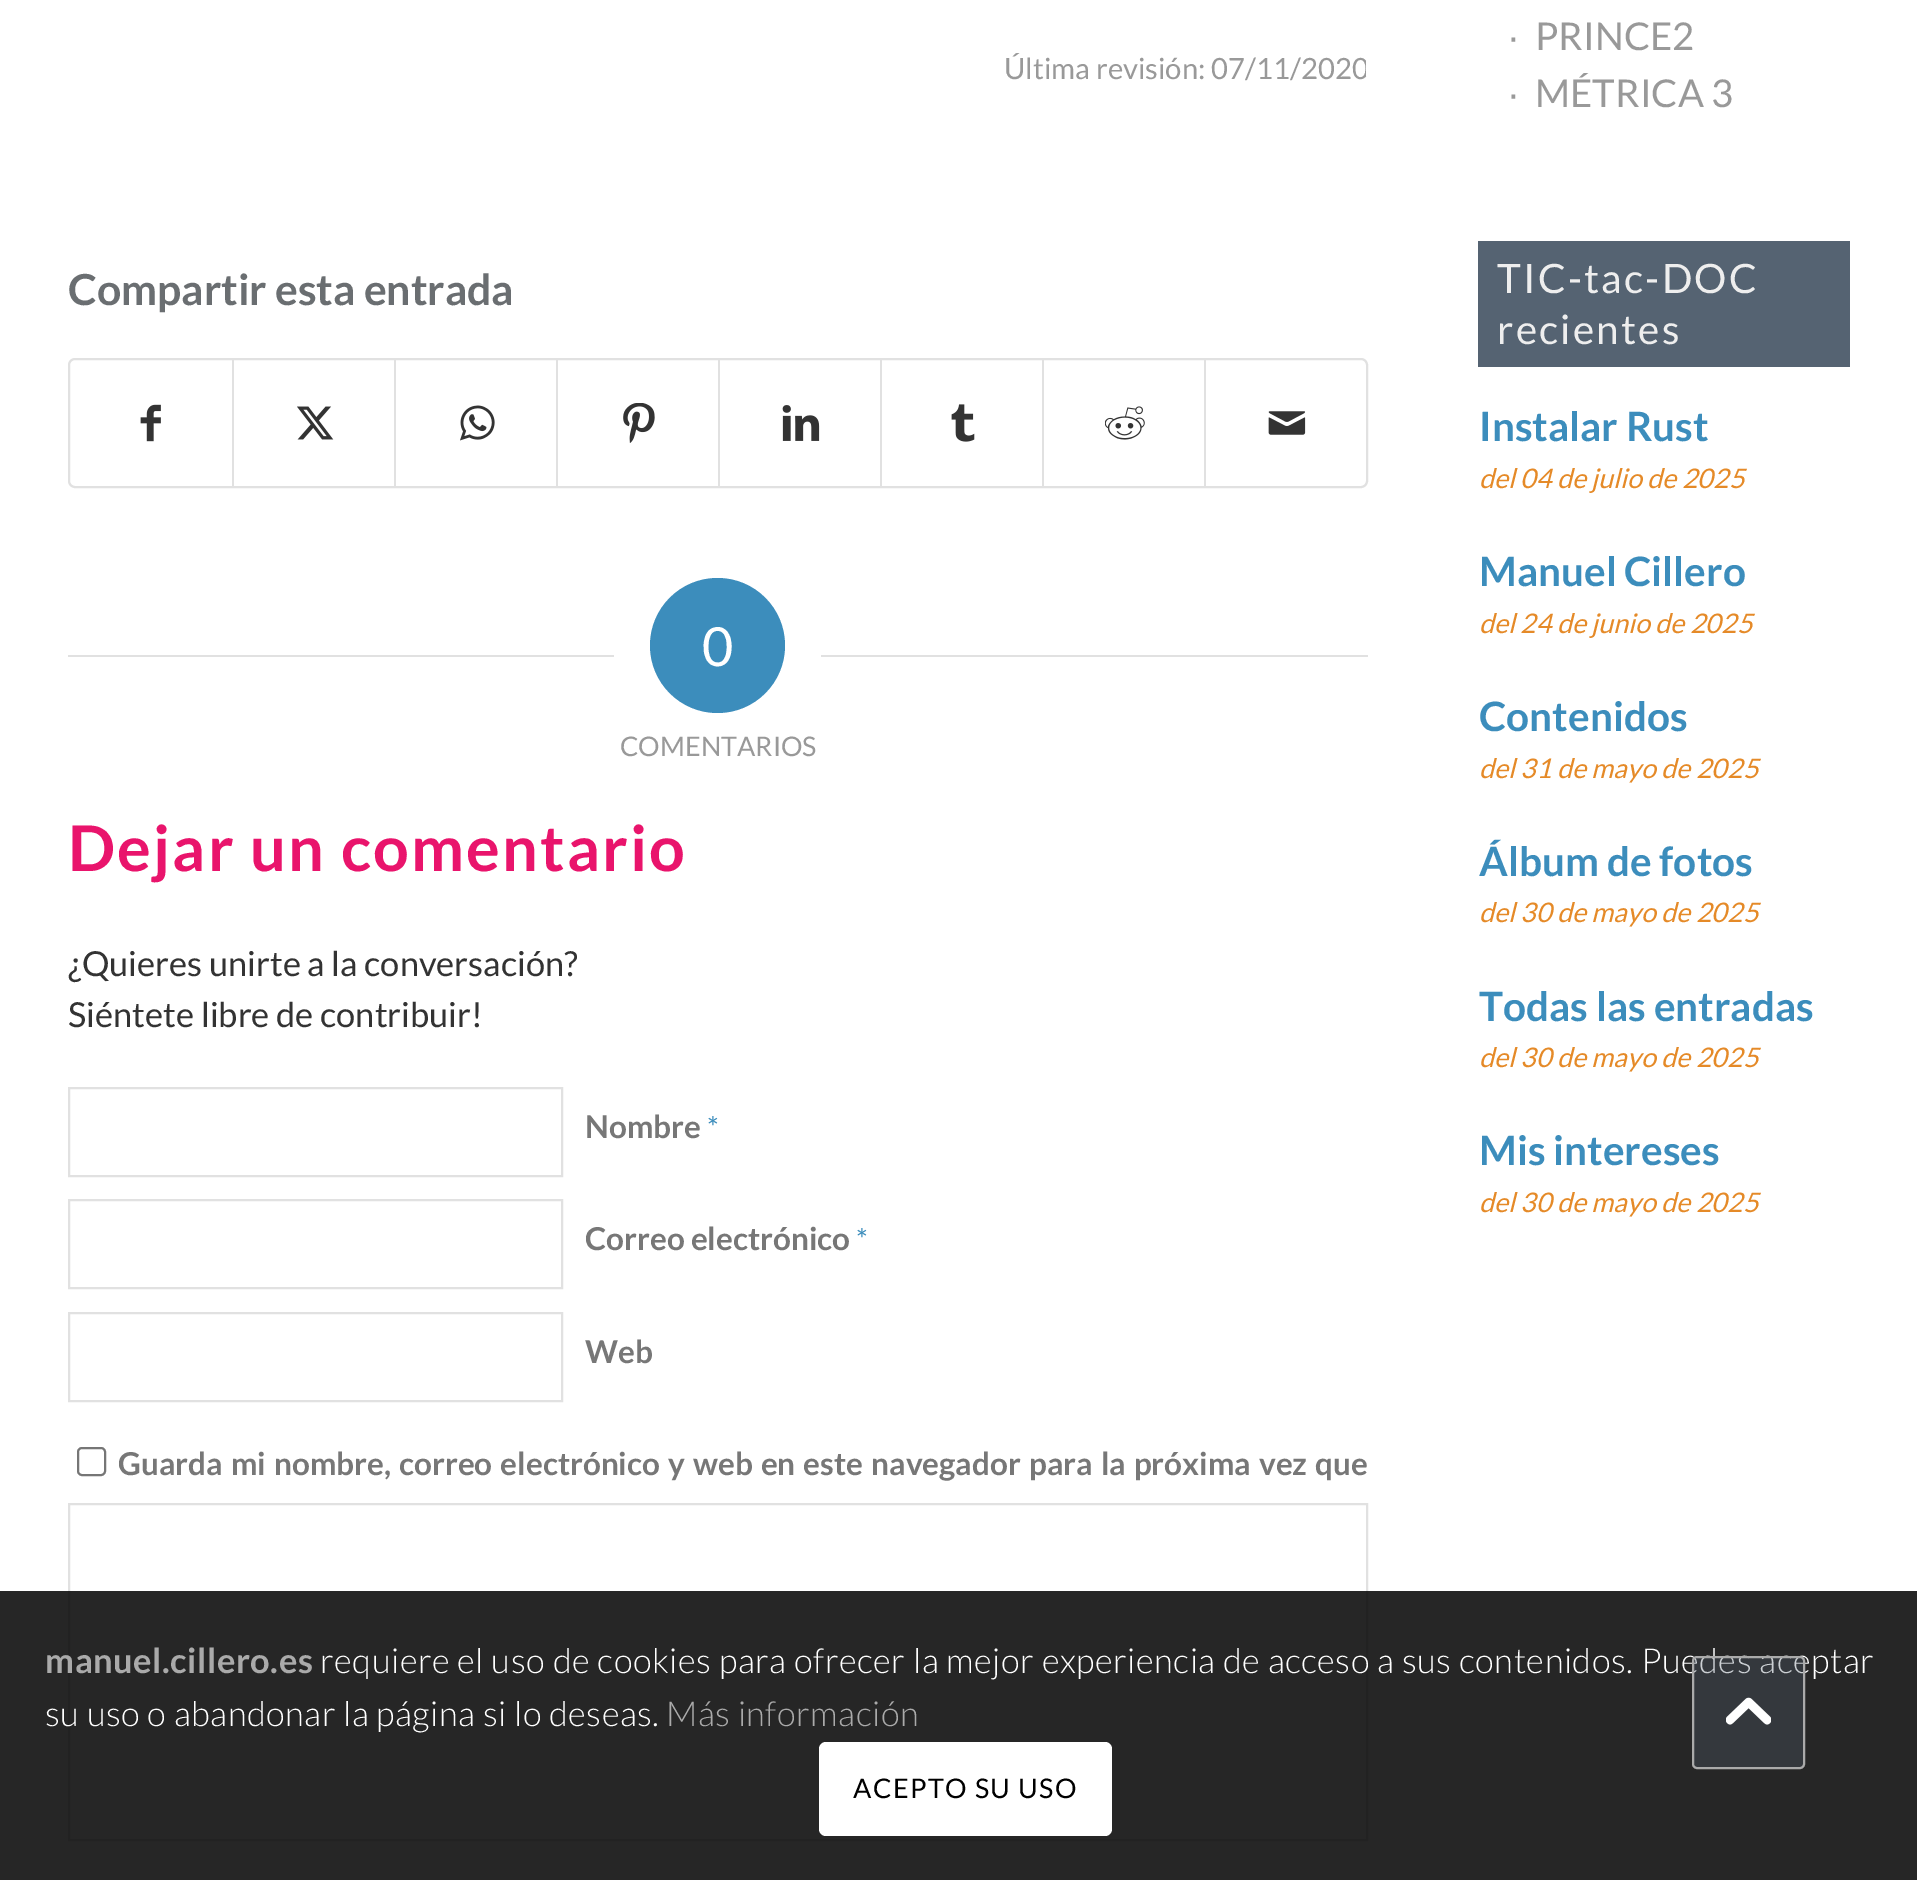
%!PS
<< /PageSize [1917 1880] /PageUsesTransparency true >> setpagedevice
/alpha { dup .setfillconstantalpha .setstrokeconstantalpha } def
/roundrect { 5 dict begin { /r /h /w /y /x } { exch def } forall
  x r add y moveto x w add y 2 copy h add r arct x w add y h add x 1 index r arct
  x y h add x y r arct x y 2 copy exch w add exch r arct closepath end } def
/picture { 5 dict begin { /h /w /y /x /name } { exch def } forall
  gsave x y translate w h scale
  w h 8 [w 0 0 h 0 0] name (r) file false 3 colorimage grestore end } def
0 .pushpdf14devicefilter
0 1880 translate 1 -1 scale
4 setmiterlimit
1 setgray
0 0 1917 1880 rectfill
/Lato-Regular [29.25 0 0 -29.25 0 0] selectfont
0.6 setgray
1004 79 moveto (Última revisión: 07/11/2020) show
/Lato-Bold [42.75 0 0 -42.75 0 0] selectfont
0.416 0.431 0.443 setrgbcolor
68 305 moveto (Compartir esta entrada) show
0.882 setgray
2 setlinewidth
69 359 1298 128 6 roundrect stroke
(img1.rgb) 140 404 21 38 picture
232 360 2 126 rectfill
(img2.rgb) 297 406 37 34 picture
394 360 2 126 rectfill
(img3.rgb) 460 405 35 36 picture
556 360 2 126 rectfill
(img4.rgb) 623 403 32 40 picture
718 360 2 126 rectfill
(img5.rgb) 782 405 38 36 picture
880 360 2 126 rectfill
(img6.rgb) 951 404 24 38 picture
1042 360 2 126 rectfill
(img7.rgb) 1105 406 40 34 picture
1204 360 2 126 rectfill
(img8.rgb) 1268 411 38 24 picture
68 655 546 2 rectfill
0.235 0.553 0.737 setrgbcolor
newpath 717.5 645.5 67.5 0 360 arc closepath fill
/Lato-Regular [54 0 0 -54 0 0] selectfont
1 setgray
702 666 moveto (0) show
0.882 setgray
821 655 547 2 rectfill
/Lato-Regular [27 0 0 -27 0 0] selectfont
0.6 setgray
620 756 moveto (COMENTARIOS) show
/Lato-Bold [63 0 0 -63 0 0] selectfont
0.914 0.078 0.424 setrgbcolor
68 871 moveto 2.25 0 (Dejar un comentario) ashow
/Lato-Regular [34.45 0 0 -34.45 0 0] selectfont
0.2 setgray
68 976 moveto (¿Quieres unirte a la conversación?) show
68 1027 moveto (Siéntete libre de contribuir!) show
0.882 setgray
69 1088 493 88 rectstroke
/Lato-Bold [31.5 0 0 -31.5 0 0] selectfont
0.467 setgray
585 1138 moveto (Nombre) show
/Lato-Regular [29.25 0 0 -29.25 0 0] selectfont
0.235 0.553 0.737 setrgbcolor
707 1138 moveto (*) show
0.882 setgray
69 1200 493 88 rectstroke
/Lato-Bold [31.5 0 0 -31.5 0 0] selectfont
0.467 setgray
585 1250 moveto (Correo electrónico) show
/Lato-Regular [29.25 0 0 -29.25 0 0] selectfont
0.235 0.553 0.737 setrgbcolor
856 1250 moveto (*) show
0.882 setgray
69 1313 493 88 rectstroke
/Lato-Bold [31.5 0 0 -31.5 0 0] selectfont
0.467 setgray
585 1363 moveto (Web) show
0.463 setgray
78 1448 27 27 4 roundrect stroke
0.467 setgray
118 1475 moveto 2 0 32 (Guarda mi nombre, correo electrónico y web en este navegador para la próxima vez que) widthshow
0.882 setgray
69 1504 1298 336 rectstroke
1 setgray
1366 61 2 15 rectfill
/LiberationSans-Regular [38.25 0 0 -38.25 0 0] selectfont
0.6 setgray
1508 50 moveto (∙) show
/Lato-Regular [38.25 0 0 -38.25 0 0] selectfont
1535 50 moveto (PRINCE2) show
/LiberationSans-Regular [38.25 0 0 -38.25 0 0] selectfont
1508 107 moveto (∙) show
/Lato-Regular [38.25 0 0 -38.25 0 0] selectfont
1535 107 moveto (MÉTRICA 3) show
0.333 0.388 0.447 setrgbcolor
1478 241 372 126 rectfill
/Lato-Regular [40.5 0 0 -40.5 0 0] selectfont
0.933 setgray
1497 293 moveto 2.25 0 (TIC-tac-DOC) ashow
1497 344 moveto 2.25 0 (recientes) ashow
/Lato-Bold [40.5 0 0 -40.5 0 0] selectfont
0.235 0.553 0.737 setrgbcolor
1479 441 moveto (Instalar Rust) show
/Lato-Italic [27 0 0 -27 0 0] selectfont
0.898 0.541 0.157 setrgbcolor
1479 488 moveto (del 04 de julio de 2025) show
/Lato-Bold [40.5 0 0 -40.5 0 0] selectfont
0.235 0.553 0.737 setrgbcolor
1479 586 moveto (Manuel Cillero) show
/Lato-Italic [27 0 0 -27 0 0] selectfont
0.898 0.541 0.157 setrgbcolor
1479 633 moveto (del 24 de junio de 2025) show
/Lato-Bold [40.5 0 0 -40.5 0 0] selectfont
0.235 0.553 0.737 setrgbcolor
1479 731 moveto (Contenidos) show
/Lato-Italic [27 0 0 -27 0 0] selectfont
0.898 0.541 0.157 setrgbcolor
1479 778 moveto (del 31 de mayo de 2025) show
/Lato-Bold [40.5 0 0 -40.5 0 0] selectfont
0.235 0.553 0.737 setrgbcolor
1479 876 moveto (Álbum de fotos) show
/Lato-Italic [27 0 0 -27 0 0] selectfont
0.898 0.541 0.157 setrgbcolor
1479 922 moveto (del 30 de mayo de 2025) show
/Lato-Bold [40.5 0 0 -40.5 0 0] selectfont
0.235 0.553 0.737 setrgbcolor
1479 1021 moveto (Todas las entradas) show
/Lato-Italic [27 0 0 -27 0 0] selectfont
0.898 0.541 0.157 setrgbcolor
1479 1067 moveto (del 30 de mayo de 2025) show
/Lato-Bold [40.5 0 0 -40.5 0 0] selectfont
0.235 0.553 0.737 setrgbcolor
1479 1165 moveto (Mis intereses) show
/Lato-Italic [27 0 0 -27 0 0] selectfont
0.898 0.541 0.157 setrgbcolor
1479 1212 moveto (del 30 de mayo de 2025) show
0.85 alpha
0 setgray
0 1591 1917 289 rectfill
/Lato-Bold [34.45 0 0 -34.45 0 0] selectfont
1 alpha
0.667 setgray
45 1673 moveto 0.52 0 (manuel.cillero.es) ashow
/Lato-Light [34.45 0 0 -34.45 0 0] selectfont
1 setgray
320 1673 moveto 0.2 0 32 0.52 0 (requiere el uso de cookies para ofrecer la mejor experiencia de acceso a sus contenidos. Puedes aceptar) awidthshow
45 1726 moveto 0.52 0 (su uso o abandonar la página si lo deseas.) ashow
0.667 setgray
666 1726 moveto 0.52 0 (Más información) ashow
1 setgray
819 1742 293 94 7 roundrect fill
/Lato-Regular [27 0 0 -27 0 0] selectfont
0 setgray
853 1798 moveto 1.4 0 (ACEPTO SU USO) ashow
0.3 alpha
0.333 0.388 0.447 setrgbcolor
1693 1657 111 111 4 roundrect fill
1 alpha
0.667 setgray
1693 1657 111 111 4 roundrect stroke
(img9.rgb) 1726 1697 45 28 picture
.poppdf14devicefilter showpage
